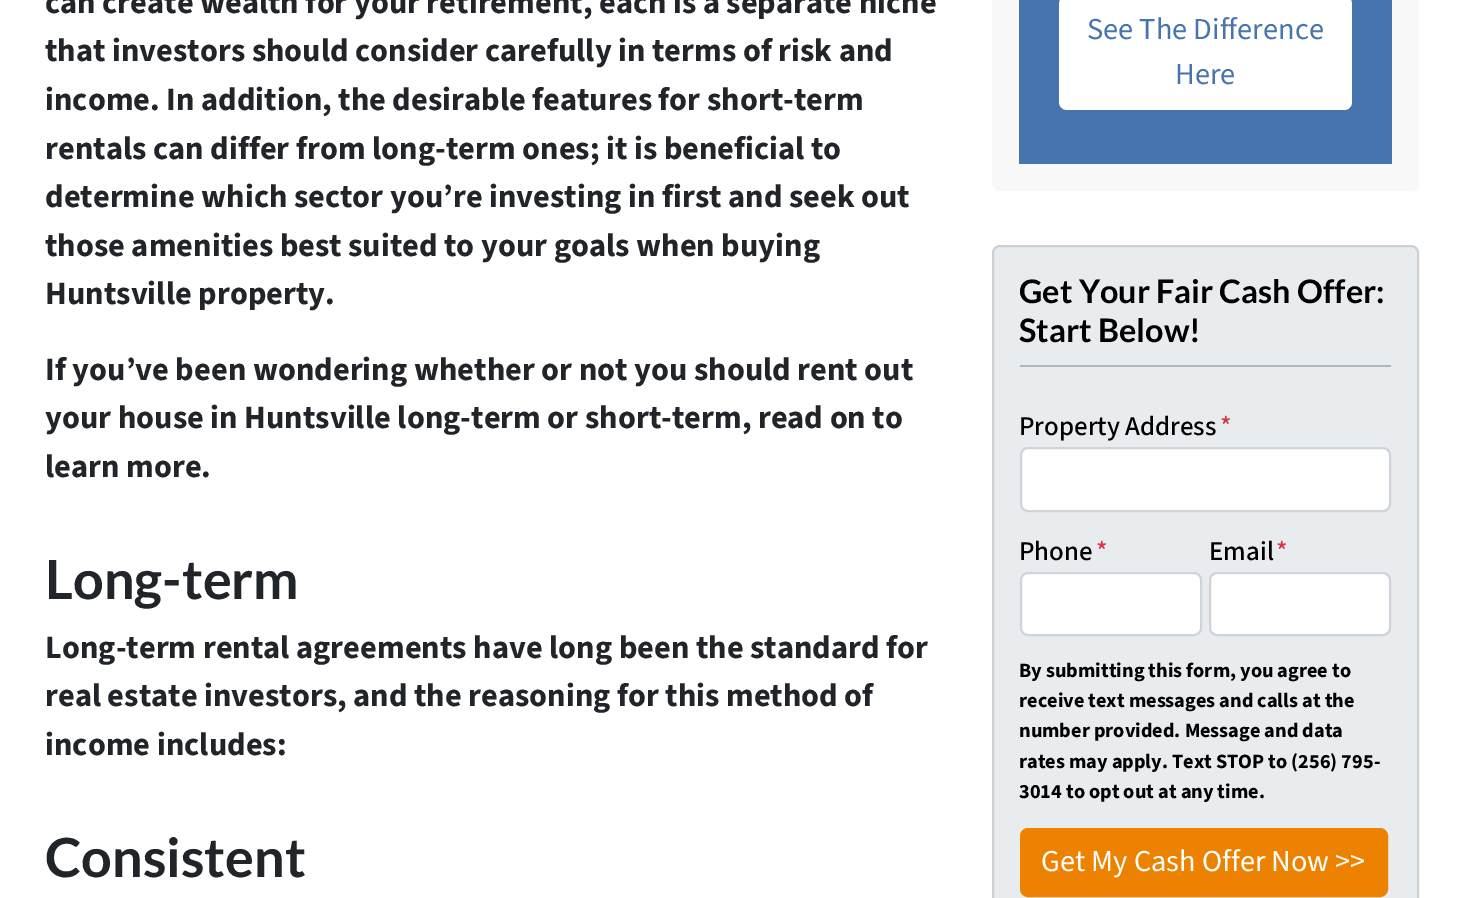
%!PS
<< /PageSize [1463 898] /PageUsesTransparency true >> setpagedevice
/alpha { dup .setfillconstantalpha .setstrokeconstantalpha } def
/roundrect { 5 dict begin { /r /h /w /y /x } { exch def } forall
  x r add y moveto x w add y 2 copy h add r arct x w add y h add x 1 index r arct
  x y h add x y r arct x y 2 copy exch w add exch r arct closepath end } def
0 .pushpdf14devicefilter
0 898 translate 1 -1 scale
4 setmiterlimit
1 setgray
0 0 1463 898 rectfill
/SourceSans3-Bold [32.4 0 0 -32.4 0 0] selectfont
0.129 0.145 0.161 setrgbcolor
45 13 moveto (can create wealth for your retirement, each is a separate niche) show
45 61 moveto (that investors should consider carefully in terms of risk and) show
45 110 moveto (income. In addition, the desirable features for short-term) show
45 159 moveto (rentals can differ from long-term ones; it is beneficial to) show
45 207 moveto (determine which sector you’re investing in first and seek out) show
45 256 moveto (those amenities best suited to your goals when buying) show
45 304 moveto (Huntsville property.) show
45 380 moveto (If you’ve been wondering whether or not you should rent out) show
45 428 moveto (your house in Huntsville long-term or short-term, read on to) show
45 477 moveto (learn more.) show
/Lato-Bold [54 0 0 -54 0 0] selectfont
45 599 moveto (Long-term) show
/SourceSans3-Bold [32.4 0 0 -32.4 0 0] selectfont
45 658 moveto (Long-term rental agreements have long been the standard for) show
45 706 moveto (real estate investors, and the reasoning for this method of) show
45 755 moveto (income includes:) show
/Lato-Bold [54 0 0 -54 0 0] selectfont
45 877 moveto (Consistent) show
0.973 setgray
992 -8 427 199 8 roundrect fill
0.278 0.455 0.686 setrgbcolor
1019 0 373 164 rectfill
1 setgray
1059 -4 293 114 8 roundrect fill
/SourceSans3-Regular [30.4 0 0 -30.4 0 0] selectfont
0.278 0.455 0.686 setrgbcolor
1087 39 moveto (See The Difference) show
1175 84 moveto (Here) show
0.914 0.925 0.937 setrgbcolor
992 245 427 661 8 roundrect fill
0.12 alpha
0 setgray
2 setlinewidth
993 246 425 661 7 roundrect stroke
1 alpha
0.678 0.71 0.741 setrgbcolor
1020 365 371 2 rectfill
/Lato-Bold [32.4 0 0 -32.4 0 0] selectfont
0 setgray
1019 303 moveto (Get Your Fair Cash Offer:) show
1019 342 moveto (Start Below!) show
/SourceSans3-Medium [27 0 0 -27 0 0] selectfont
1019 435 moveto (Property Address) show
0.863 0.208 0.271 setrgbcolor
1220 435 moveto (*) show
1 setgray
1021 448 369 63 7 roundrect gsave fill grestore
0.808 0.831 0.855 setrgbcolor
stroke
0 setgray
1019 560 moveto (Phone) show
0.863 0.208 0.271 setrgbcolor
1096 560 moveto (*) show
1 setgray
1021 573 180 62 7 roundrect gsave fill grestore
0.808 0.831 0.855 setrgbcolor
stroke
0 setgray
1209 560 moveto (Email) show
0.863 0.208 0.271 setrgbcolor
1276 560 moveto (*) show
1 setgray
1210 573 180 62 7 roundrect gsave fill grestore
0.808 0.831 0.855 setrgbcolor
stroke
/SourceSans3-Bold [20.25 0 0 -20.25 0 0] selectfont
0 setgray
1019 677 moveto (By submitting this form, you agree to) show
1019 707 moveto (receive text messages and calls at the) show
1019 737 moveto (number provided. Message and data) show
1019 768 moveto (rates may apply. Text STOP to \(256\) 795-) show
1019 798 moveto (3014 to opt out at any time.) show
0.929 0.51 0 setrgbcolor
1021 829 366 67 7 roundrect gsave fill grestore
stroke
/SourceSans3-Regular [30.4 0 0 -30.4 0 0] selectfont
1 setgray
1041 871 moveto (Get My Cash Offer Now >>) show
.poppdf14devicefilter showpage
